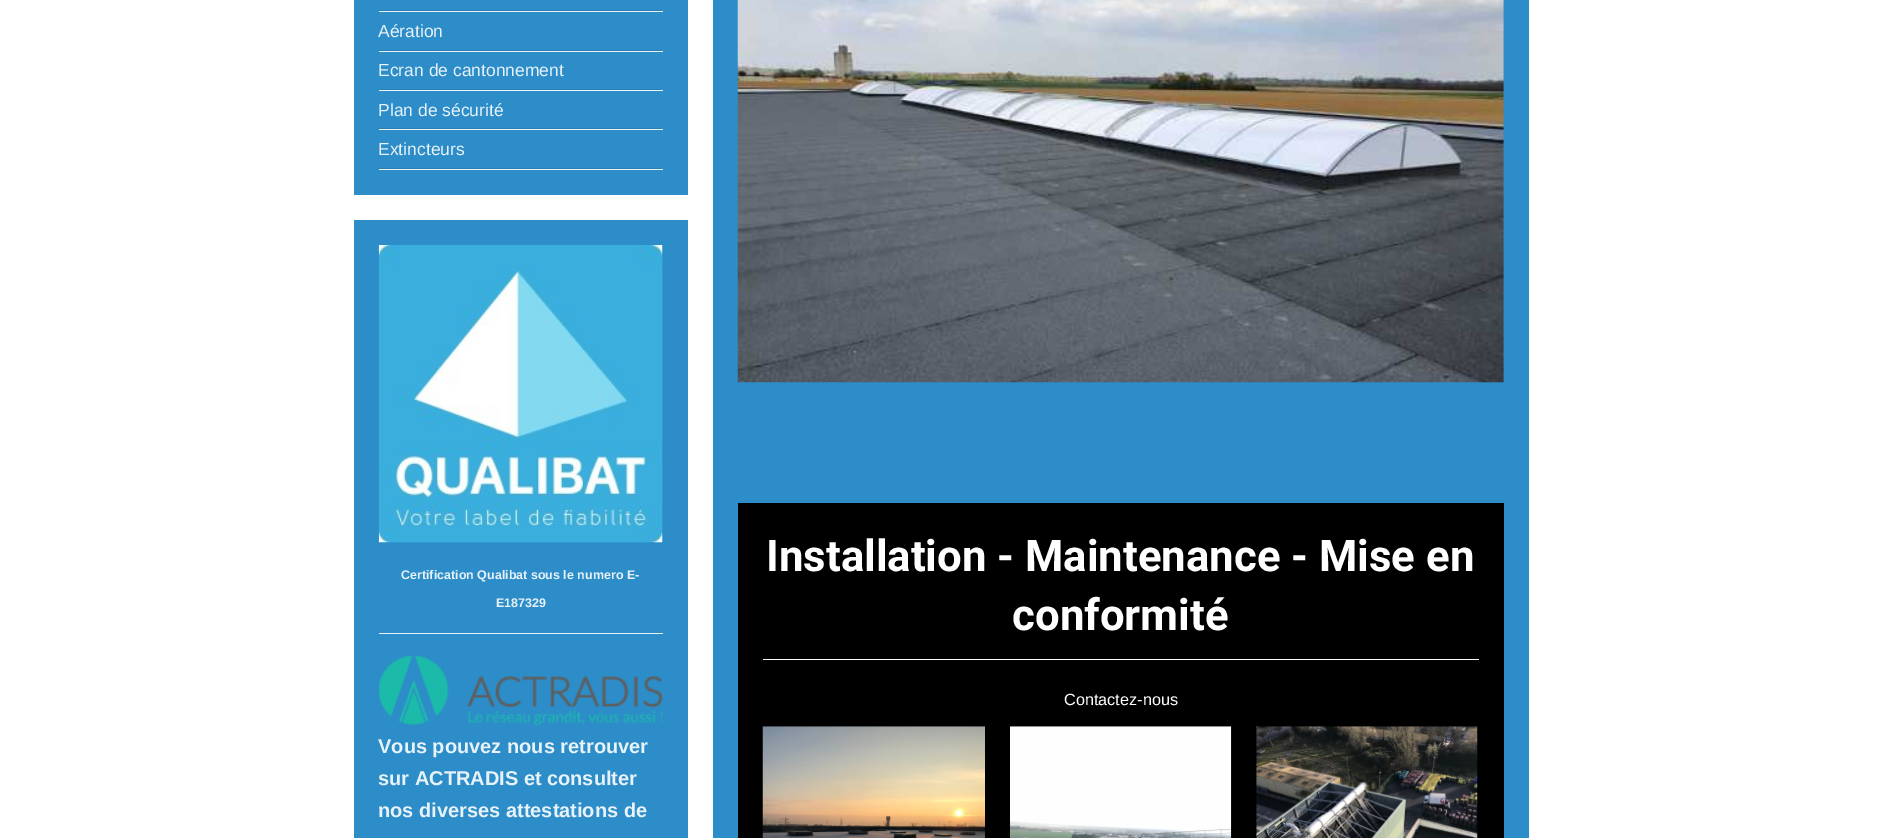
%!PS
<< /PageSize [1881 838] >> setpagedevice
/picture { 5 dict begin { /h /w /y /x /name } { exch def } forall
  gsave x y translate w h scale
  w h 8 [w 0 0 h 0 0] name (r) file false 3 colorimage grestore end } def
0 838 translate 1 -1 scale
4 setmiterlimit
1 setgray
0 0 1881 838 rectfill
0.173 0.553 0.788 setrgbcolor
354 0 334 195 rectfill
0.91 0.949 0.976 setrgbcolor
379 11 284 1 rectfill
0.157 0.498 0.71 setrgbcolor
newpath 662 11 moveto 379 11 lineto 379 10 lineto 658 10 lineto closepath fill
0.91 0.949 0.976 setrgbcolor
379 51 284 1 rectfill
0.157 0.498 0.71 setrgbcolor
newpath 662 51 moveto 379 51 lineto 379 50 lineto 658 50 lineto closepath fill
/LiberationSans-Regular [17.5 0 0 -17.5 0 0] selectfont
0.91 0.949 0.976 setrgbcolor
378 37 moveto (Aération) show
379 90 284 1 rectfill
0.157 0.498 0.71 setrgbcolor
newpath 662 90 moveto 379 90 lineto 379 89 lineto 658 89 lineto closepath fill
0.91 0.949 0.976 setrgbcolor
378 76 moveto (Ecran de cantonnement) show
379 129 284 1 rectfill
0.157 0.498 0.71 setrgbcolor
newpath 662 129 moveto 379 129 lineto 379 128 lineto 658 128 lineto closepath fill
0.91 0.949 0.976 setrgbcolor
378 116 moveto (Plan de sécurité) show
379 169 284 1 rectfill
0.157 0.498 0.71 setrgbcolor
newpath 662 169 moveto 379 169 lineto 379 168 lineto 658 168 lineto closepath fill
0.91 0.949 0.976 setrgbcolor
378 155 moveto (Extincteurs) show
0.173 0.553 0.788 setrgbcolor
354 220 334 618 rectfill
(img1.rgb) 378 245 285 298 picture
/LiberationSans-Bold [12.5 0 0 -12.5 0 0] selectfont
0.91 0.949 0.976 setrgbcolor
401 579 moveto (Certification Qualibat sous le numero E-) show
496 607 moveto (E187329) show
379 633 284 1 rectfill
(img2.rgb) 379 656 284 69 picture
/LiberationSans-Bold [20 0 0 -20 0 0] selectfont
378 753 moveto (Vous pouvez nous retrouver) show
378 785 moveto (sur ACTRADIS et consulter) show
378 817 moveto (nos diverses attestations de) show
0.173 0.553 0.788 setrgbcolor
713 0 816 838 rectfill
(img3.rgb) 737 0 767 383 picture
0 setgray
738 503 766 335 rectfill
1 setgray
763 659 716 1 rectfill
/Roboto-Bold [43.75 0 0 -43.75 0 0] selectfont
766 571 moveto (Installation - Maintenance - Mise en) show
1012 630 moveto (conformité) show
/LiberationSans-Regular [16.25 0 0 -16.25 0 0] selectfont
1064 705 moveto (Contactez-nous) show
(img4.rgb) 762 726 223 112 picture
(img5.rgb) 1010 726 222 112 picture
(img6.rgb) 1256 726 222 112 picture
showpage
